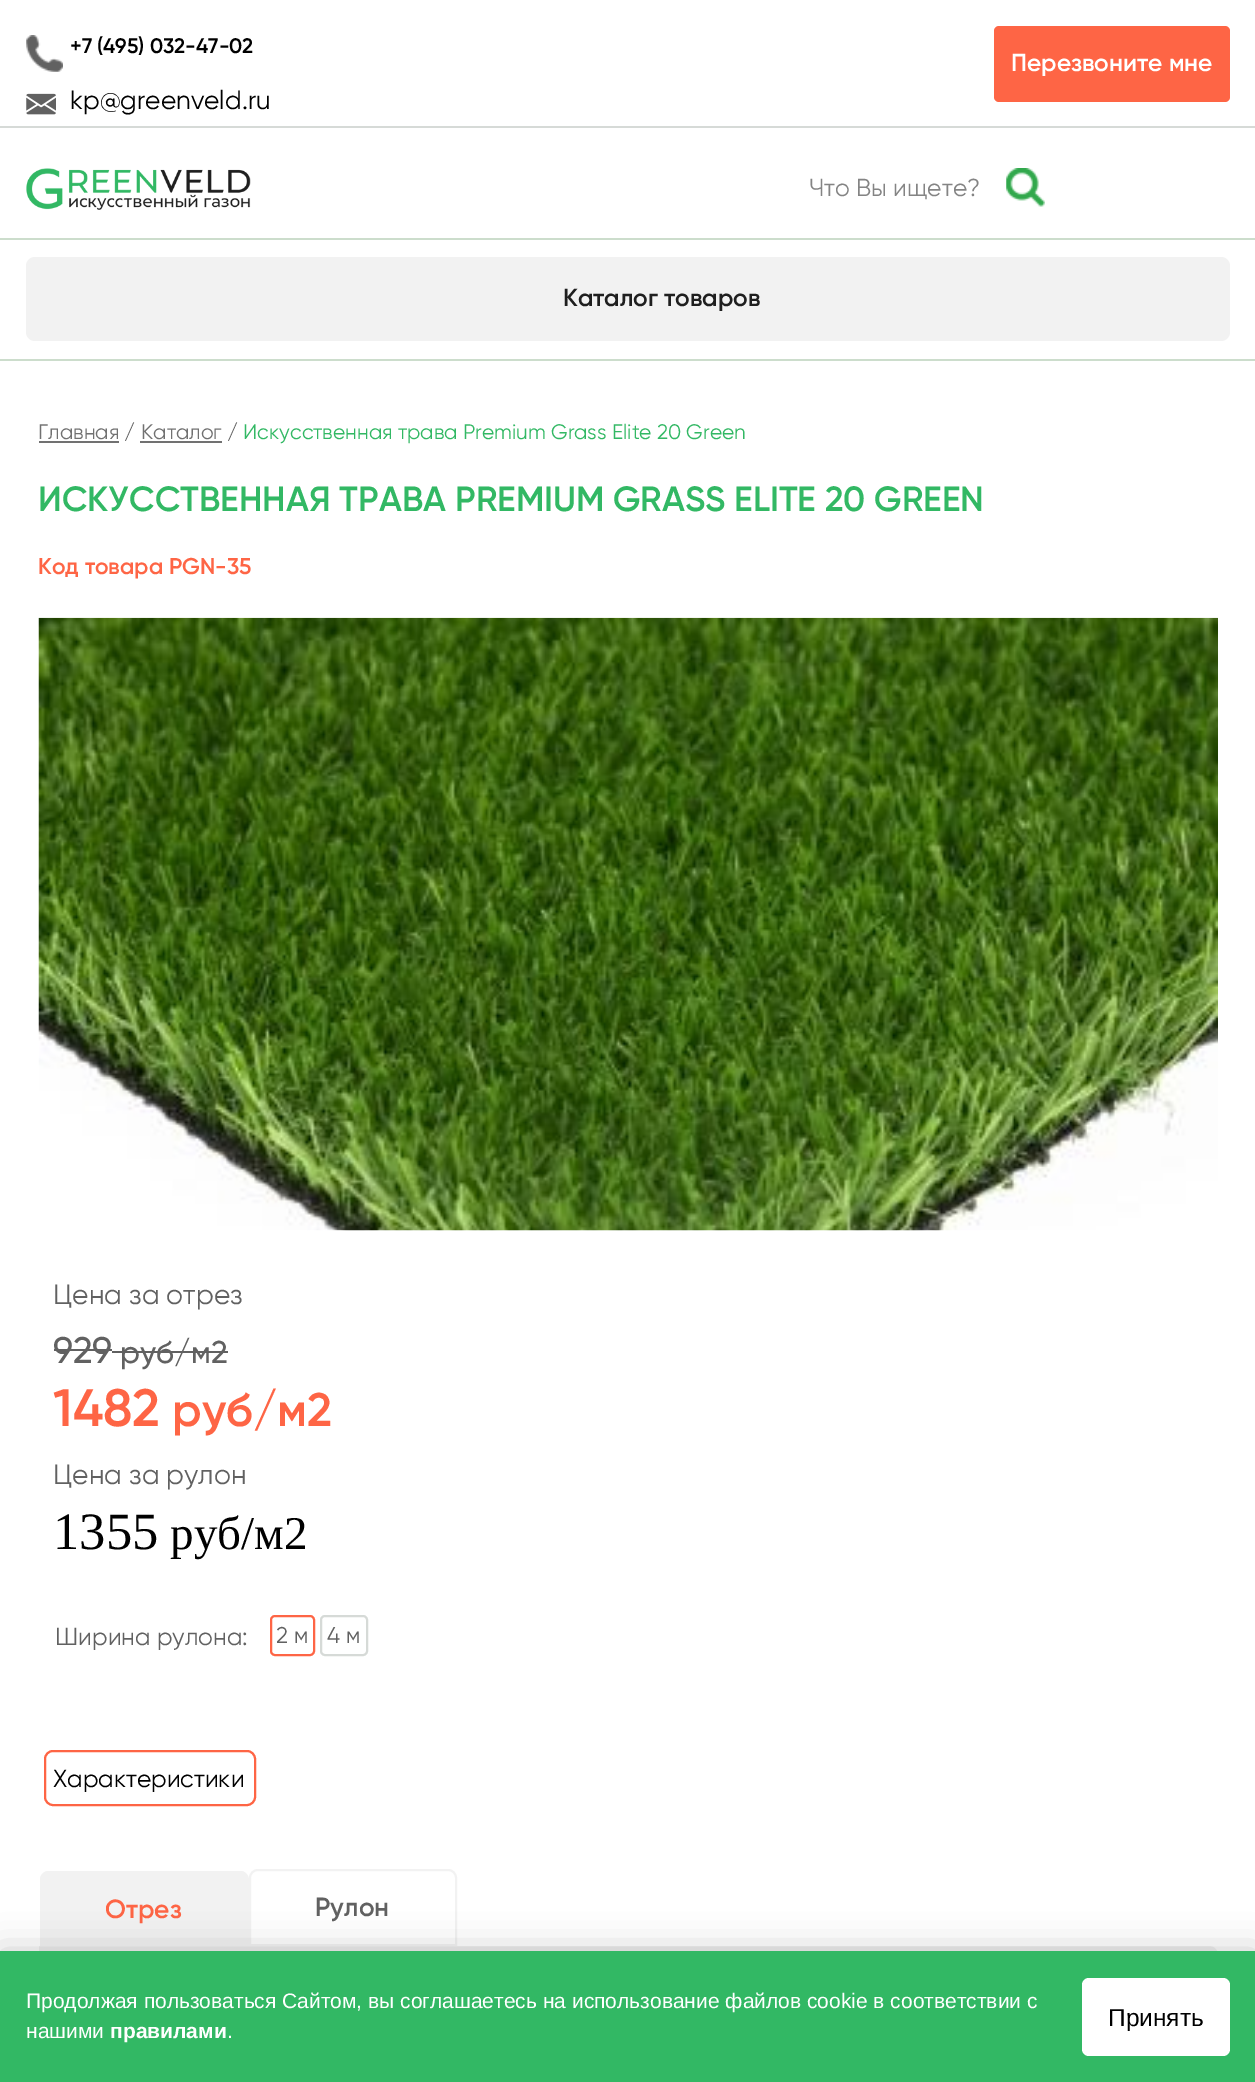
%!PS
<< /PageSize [1255 2082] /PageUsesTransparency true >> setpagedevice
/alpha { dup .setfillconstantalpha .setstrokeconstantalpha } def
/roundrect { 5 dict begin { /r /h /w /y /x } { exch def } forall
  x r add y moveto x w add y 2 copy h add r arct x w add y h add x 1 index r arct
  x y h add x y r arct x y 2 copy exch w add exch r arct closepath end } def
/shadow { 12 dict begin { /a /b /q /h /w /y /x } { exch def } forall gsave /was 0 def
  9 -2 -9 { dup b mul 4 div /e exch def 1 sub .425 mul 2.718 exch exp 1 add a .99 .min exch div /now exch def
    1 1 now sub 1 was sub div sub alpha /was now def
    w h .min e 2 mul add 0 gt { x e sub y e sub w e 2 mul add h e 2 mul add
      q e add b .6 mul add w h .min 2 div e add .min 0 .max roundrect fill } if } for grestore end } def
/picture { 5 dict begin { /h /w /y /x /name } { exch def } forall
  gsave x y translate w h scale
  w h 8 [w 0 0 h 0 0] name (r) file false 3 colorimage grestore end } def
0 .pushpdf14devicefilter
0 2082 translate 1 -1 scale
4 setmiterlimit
1 setgray
0 0 1255 2082 rectfill
0.839 0.855 0.843 setrgbcolor
0 126 1255 2 rectfill
(img1.rgb) 26 35 37 37 picture
/Gilroy-SemiBold [21 0 0 -21 0 0] selectfont
0 setgray
70 53 moveto (+7 \(495\) 032-47-02) show
(img2.rgb) 26 93 30 22 picture
/Gilroy-Regular [26.25 0 0 -26.25 0 0] selectfont
70 109 moveto (kp@greenveld.ru) show
0.996 0.396 0.271 setrgbcolor
994 26 236 76 5 roundrect fill
/Gilroy-SemiBold [24.5 0 0 -24.5 0 0] selectfont
1 setgray
1011 71 moveto (Перезвоните мне) show
(img3.rgb) 26 168 225 42 picture
/Gilroy-Regular [24.5 0 0 -24.5 0 0] selectfont
0.518 setgray
809 196 moveto (Что Вы ищете?) show
(img4.rgb) 1006 168 39 39 picture
0.8 0.867 0.8 setrgbcolor
0 238 1255 2 rectfill
0 359 1255 2 rectfill
0.949 setgray
26 257 1204 84 9 roundrect fill
/Gilroy-SemiBold [24.5 0 0 -24.5 0 0] selectfont
0.122 setgray
563 306 moveto (Каталог товаров) show
/Gilroy-Regular [21 0 0 -21 0 0] selectfont
0.443 setgray
38 439 moveto (Главная) show
39 441 80 2 rectfill
0.38 setgray
124 439 moveto (/) show
0.443 setgray
141 439 moveto (Каталог) show
140 441 82 2 rectfill
0.38 setgray
227 439 moveto (/) show
0.196 0.722 0.392 setrgbcolor
243 439 moveto (Искусственная трава Premium Grass Elite 20 Green) show
/Gilroy-SemiBold [35 0 0 -35 0 0] selectfont
38 511 moveto (ИСКУССТВЕННАЯ ТРАВА PREMIUM GRASS ELITE 20 GREEN) show
/Gilroy-SemiBold [22.75 0 0 -22.75 0 0] selectfont
0.996 0.396 0.271 setrgbcolor
38 574 moveto (Код товара PGN-35) show
(img5.rgb) 38 617 1180 614 picture
/Gilroy-Regular [28 0 0 -28 0 0] selectfont
0.38 setgray
53 1304 moveto (Цена за отрез) show
/Gilroy-Medium [37 0 0 -37 0 0] selectfont
53 1363 moveto (929) show
54 1349 58 2 rectfill
/Gilroy-Medium [31.5 0 0 -31.5 0 0] selectfont
120 1363 moveto (руб/м2) show
112 1351 116 2 rectfill
/Gilroy-SemiBold [52.5 0 0 -52.5 0 0] selectfont
0.996 0.396 0.271 setrgbcolor
53 1426 moveto (1482) show
/Gilroy-SemiBold [47 0 0 -47 0 0] selectfont
172 1426 moveto (руб/м2) show
/Gilroy-Regular [28 0 0 -28 0 0] selectfont
0.38 setgray
53 1484 moveto (Цена за рулон) show
/LiberationSerif-Regular [52.5 0 0 -52.5 0 0] selectfont
0 setgray
53 1549 moveto (1355) show
/LiberationSerif-Regular [47 0 0 -47 0 0] selectfont
170 1549 moveto (руб/м2) show
/Gilroy-Regular [24.5 0 0 -24.5 0 0] selectfont
0.38 setgray
55 1645 moveto (Ширина рулона:) show
0.996 0.396 0.271 setrgbcolor
2 setlinewidth
271 1616 43 39 4 roundrect stroke
/Gilroy-Regular [22.75 0 0 -22.75 0 0] selectfont
0.38 setgray
276 1643 moveto (2 м) show
0.839 0.855 0.843 setrgbcolor
321 1616 46 39 4 roundrect stroke
0.38 setgray
327 1643 moveto (4 м) show
0.996 0.396 0.271 setrgbcolor
45 1751 210 54 8 roundrect stroke
/Gilroy-Regular [24.5 0 0 -24.5 0 0] selectfont
0 setgray
53 1787 moveto (Характеристики) show
0.949 setgray
newpath 39 1946 moveto 1209 1946 lineto 1214 1946 1218 1950 1218 1955 curveto 1218 2082 lineto 1218 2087 1214 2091 1209 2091 curveto 48 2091 lineto 43 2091 39 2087 39 2082 curveto closepath fill
newpath 49 1871 moveto 240 1871 lineto 245 1871 249 1875 249 1880 curveto 249 1946 lineto 40 1946 lineto 40 1880 lineto 40 1875 44 1871 49 1871 curveto closepath fill
newpath 49 1871 moveto 240 1871 lineto 245 1871 248 1875 248 1880 curveto 248 1946 lineto 40 1946 lineto 40 1880 lineto 40 1875 44 1871 49 1871 curveto closepath 49 1872 moveto 240 1872 lineto 244 1872 247 1876 247 1880 curveto 247 1946 lineto 42 1946 lineto 42 1880 lineto 42 1876 45 1872 49 1872 curveto closepath eofill
/Gilroy-SemiBold [26.25 0 0 -26.25 0 0] selectfont
0.996 0.396 0.271 setrgbcolor
105 1918 moveto (Отрез) show
0.949 setgray
newpath 258 1870 moveto 448 1870 lineto 452.5 1870 456 1873.5 456 1878 curveto 456 1945 lineto 250 1945 lineto 250 1878 lineto 250 1873.5 253.5 1870 258 1870 curveto closepath stroke
0.38 setgray
315 1916 moveto (Рулон) show
0 setgray
0 1951 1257 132 0 17.5 0.2 shadow
0.196 0.722 0.392 setrgbcolor
0 1951 1255 131 rectfill
/LiberationSans-Regular [21 0 0 -21 0 0] selectfont
1 setgray
26 2008 moveto (Продолжая пользоваться Сайтом, вы соглашаетесь на использование файлов cookie в соответствии с) show
26 2038 moveto (нашими) show
/LiberationSans-Bold [21 0 0 -21 0 0] selectfont
110 2038 moveto (правилами) show
/LiberationSans-Regular [21 0 0 -21 0 0] selectfont
227 2038 moveto (.) show
1082 1978 148 78 7 roundrect fill
/LiberationSans-Regular [24.5 0 0 -24.5 0 0] selectfont
0 setgray
1108 2026 moveto (Принять) show
.poppdf14devicefilter showpage
